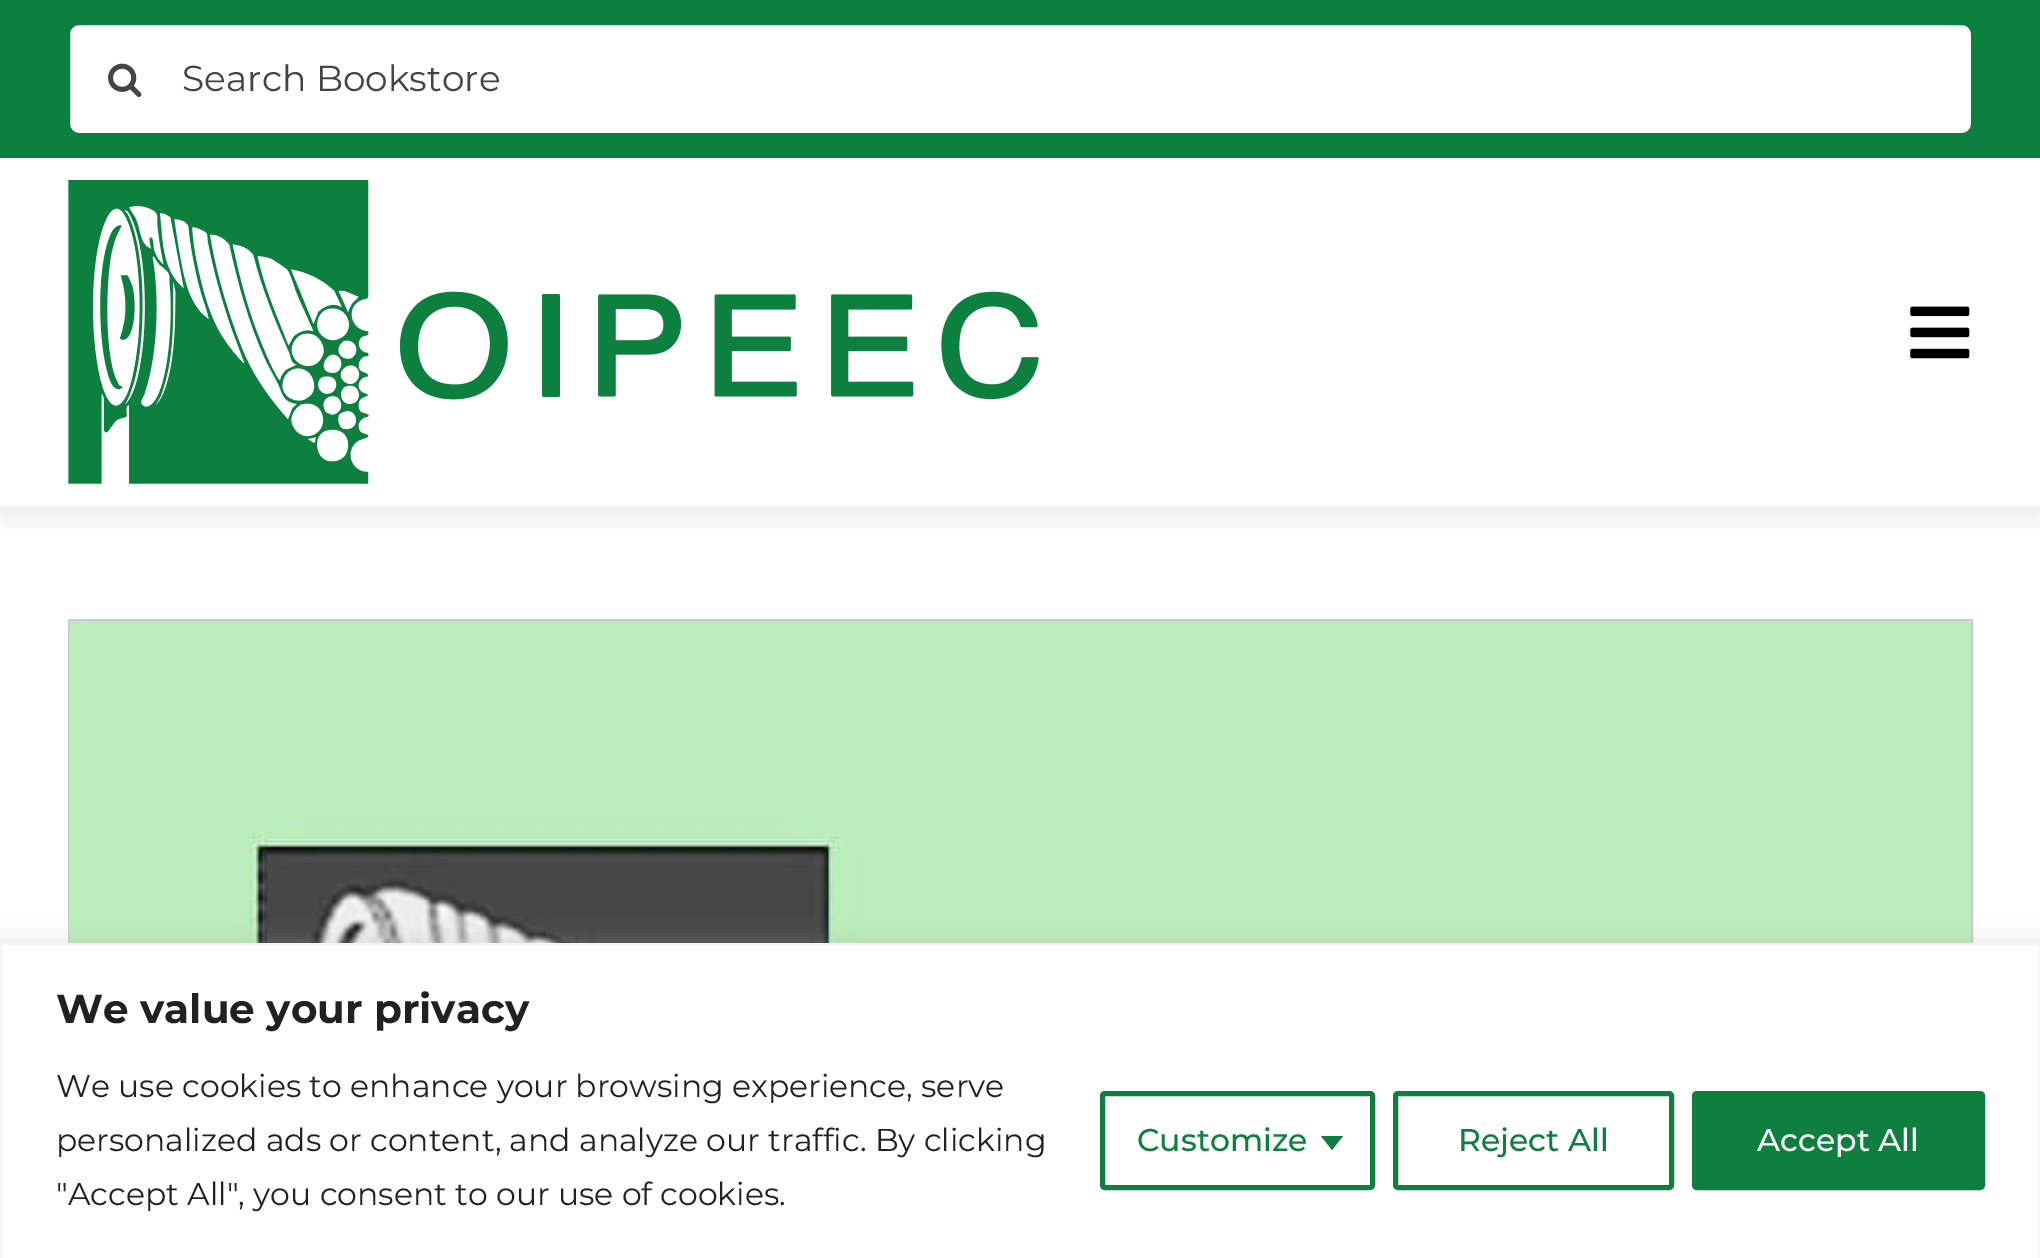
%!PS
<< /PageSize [2040 1258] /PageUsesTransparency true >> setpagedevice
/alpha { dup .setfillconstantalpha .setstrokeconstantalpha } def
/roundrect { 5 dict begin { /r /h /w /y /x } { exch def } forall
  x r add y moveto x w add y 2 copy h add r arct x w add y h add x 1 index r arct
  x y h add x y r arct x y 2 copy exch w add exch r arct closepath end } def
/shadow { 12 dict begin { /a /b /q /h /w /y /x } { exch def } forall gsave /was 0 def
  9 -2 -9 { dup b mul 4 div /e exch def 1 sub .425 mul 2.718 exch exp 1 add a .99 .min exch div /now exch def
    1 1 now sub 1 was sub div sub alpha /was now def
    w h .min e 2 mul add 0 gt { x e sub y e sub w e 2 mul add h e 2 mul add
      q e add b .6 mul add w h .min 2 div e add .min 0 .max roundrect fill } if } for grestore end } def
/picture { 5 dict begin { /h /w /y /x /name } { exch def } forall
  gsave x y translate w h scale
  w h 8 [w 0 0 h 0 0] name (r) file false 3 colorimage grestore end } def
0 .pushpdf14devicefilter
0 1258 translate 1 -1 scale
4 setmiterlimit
1 setgray
0 0 2040 1258 rectfill
gsave
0 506 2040 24 rectclip
0 setgray
0 162 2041 349 0 22.5 0.1 shadow
grestore
0.051 0.498 0.247 setrgbcolor
0 0 2040 158 rectfill
1 setgray
69 24 1903 110 10 roundrect gsave fill grestore
0.051 0.498 0.247 setrgbcolor
2 setlinewidth
stroke
(img1.rgb) 108 63 34 34 picture
/Montserrat-Regular [36 0 0 -36 0 0] selectfont
0.267 setgray
182 91 moveto (Search Bookstore) show
(img2.rgb) 68 180 971 304 picture
(img3.rgb) 1910 306 60 53 picture
0.8 setgray
69 620 1903 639 rectstroke
(img4.rgb) 69 621 1902 322 picture
0.675 0.671 0.671 setrgbcolor
0 941 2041 317 0 11 0.3 shadow
1 setgray
newpath 1 944 moveto 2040 944 lineto 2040 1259 lineto 1 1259 lineto closepath gsave fill grestore
0.957 setgray
stroke
/Montserrat-Bold [40.5 0 0 -40.5 0 0] selectfont
0.129 setgray
56 1023 moveto (We value your privacy) show
/Montserrat-Regular [31.5 0 0 -31.5 0 0] selectfont
56 1097 moveto (We use cookies to enhance your browsing experience, serve) show
56 1151 moveto (personalized ads or content, and analyze our traffic. By clicking) show
56 1205 moveto ("Accept All", you consent to our use of cookies.) show
0.055 0.498 0.247 setrgbcolor
5 setlinewidth
1102.5 1093.5 270 94 2.5 roundrect stroke
/Montserrat-Medium [31.5 0 0 -31.5 0 0] selectfont
1137 1151 moveto (Customize) show
newpath 1321 1136 moveto 1343 1136 lineto 1332 1150 lineto closepath fill
1395.5 1093.5 276 94 2.5 roundrect stroke
1458 1151 moveto (Reject All) show
1694.5 1093.5 288 94 2.5 roundrect gsave fill grestore
stroke
1 setgray
1757 1151 moveto (Accept All) show
.poppdf14devicefilter showpage
